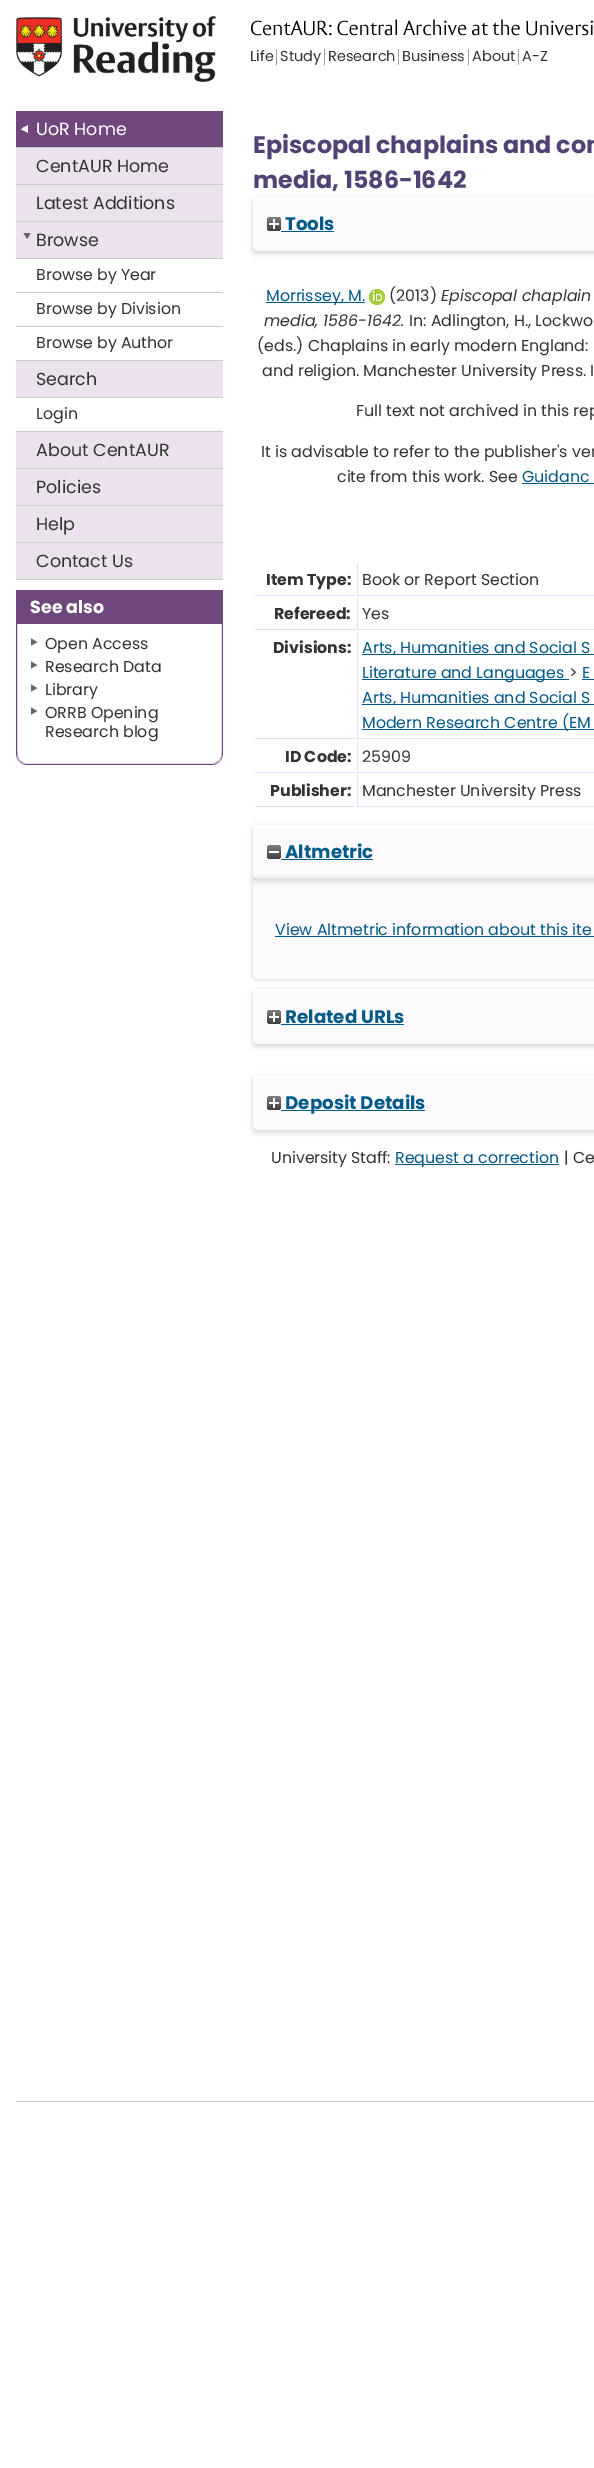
%!PS
<< /PageSize [594 2468] /PageUsesTransparency true >> setpagedevice
/alpha { dup .setfillconstantalpha .setstrokeconstantalpha } def
/roundrect { 5 dict begin { /r /h /w /y /x } { exch def } forall
  x r add y moveto x w add y 2 copy h add r arct x w add y h add x 1 index r arct
  x y h add x y r arct x y 2 copy exch w add exch r arct closepath end } def
/shadow { 12 dict begin { /a /b /q /h /w /y /x } { exch def } forall gsave /was 0 def
  9 -2 -9 { dup b mul 4 div /e exch def 1 sub .425 mul 2.718 exch exp 1 add a .99 .min exch div /now exch def
    1 1 now sub 1 was sub div sub alpha /was now def
    w h .min e 2 mul add 0 gt { x e sub y e sub w e 2 mul add h e 2 mul add
      q e add b .6 mul add w h .min 2 div e add .min 0 .max roundrect fill } if } for grestore end } def
/picture { 5 dict begin { /h /w /y /x /name } { exch def } forall
  gsave x y translate w h scale
  w h 8 [w 0 0 h 0 0] name (r) file false 3 colorimage grestore end } def
0 .pushpdf14devicefilter
0 2468 translate 1 -1 scale
4 setmiterlimit
1 setgray
0 0 594 2468 rectfill
(img1.rgb) 16 16 200 66 picture
(img2.rgb) 251 19 342 17 picture
0.627 setgray
276 49 1 16 rectfill
/Poppins-Regular [14.5 0 0 -14.5 0 0] selectfont
0.2 setgray
250 61 moveto (Life) show
0.627 setgray
324 49 1 16 rectfill
0.2 setgray
280 61 moveto (Study) show
0.627 setgray
398 49 1 16 rectfill
0.2 setgray
328 61 moveto (Research) show
0.627 setgray
468 49 1 16 rectfill
0.2 setgray
402 61 moveto (Business) show
0.627 setgray
518 49 1 16 rectfill
0.2 setgray
472 61 moveto (About) show
522 61 moveto (A-Z) show
0.435 0.278 0.49 setrgbcolor
16 111 207 36 rectfill
(img3.rgb) 21 125 7 8 picture
0.796 setgray
16 147 207 1 rectfill
/Poppins-Regular [17.5 0 0 -17.5 0 0] selectfont
1 setgray
36 135 moveto (UoR Home) show
0.922 0.886 0.933 setrgbcolor
16 148 207 36 rectfill
0.796 setgray
16 184 207 1 rectfill
0.2 setgray
36 172 moveto (CentAUR Home) show
0.922 0.886 0.933 setrgbcolor
16 185 207 36 rectfill
0.796 setgray
16 221 207 1 rectfill
0.2 setgray
36 209 moveto (Latest Additions) show
0.922 0.886 0.933 setrgbcolor
16 222 207 36 rectfill
(img4.rgb) 23 233 8 7 picture
0.796 setgray
16 258 207 1 rectfill
0.2 setgray
36 246 moveto (Browse) show
0.796 setgray
16 292 207 1 rectfill
/Poppins-Regular [15.8 0 0 -15.8 0 0] selectfont
0.2 setgray
36 280 moveto (Browse by Year) show
0.796 setgray
16 326 207 1 rectfill
0.2 setgray
36 314 moveto (Browse by Division) show
0.796 setgray
16 360 207 1 rectfill
0.2 setgray
36 348 moveto (Browse by Author) show
0.922 0.886 0.933 setrgbcolor
16 361 207 36 rectfill
0.796 setgray
16 397 207 1 rectfill
/Poppins-Regular [17.5 0 0 -17.5 0 0] selectfont
0.2 setgray
36 385 moveto (Search) show
0.796 setgray
16 431 207 1 rectfill
/Poppins-Regular [15.8 0 0 -15.8 0 0] selectfont
0.2 setgray
36 419 moveto (Login) show
0.922 0.886 0.933 setrgbcolor
16 432 207 36 rectfill
0.796 setgray
16 468 207 1 rectfill
/Poppins-Regular [17.5 0 0 -17.5 0 0] selectfont
0.2 setgray
36 456 moveto (About CentAUR) show
0.922 0.886 0.933 setrgbcolor
16 469 207 36 rectfill
0.796 setgray
16 505 207 1 rectfill
0.2 setgray
36 493 moveto (Policies) show
0.922 0.886 0.933 setrgbcolor
16 506 207 36 rectfill
0.796 setgray
16 542 207 1 rectfill
0.2 setgray
36 530 moveto (Help) show
0.922 0.886 0.933 setrgbcolor
16 543 207 36 rectfill
0.796 setgray
16 579 207 1 rectfill
0.2 setgray
36 567 moveto (Contact Us) show
(img5.rgb) 16 752 207 13 picture
(img6.rgb) 16 624 207 131 picture
0.435 0.278 0.49 setrgbcolor
16 590 207 34 rectfill
/Poppins-Bold [17.5 0 0 -17.5 0 0] selectfont
1 setgray
30 613 moveto (See also) show
(img7.rgb) 31 638 7 9 picture
/Poppins-Regular [15.8 0 0 -15.8 0 0] selectfont
0.2 setgray
45 649 moveto (Open Access) show
(img7.rgb) 31 661 7 9 picture
45 672 moveto (Research Data) show
(img7.rgb) 31 684 7 9 picture
45 695 moveto (Library) show
(img7.rgb) 31 707 7 9 picture
45 718 moveto (ORRB Opening) show
45 737 moveto (Research blog) show
/Poppins-Bold [23.75 0 0 -23.75 0 0] selectfont
0.318 0.259 0.459 setrgbcolor
253 153 moveto (Episcopal chaplains and con) show
gsave
newpath 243 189 moveto 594 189 lineto 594 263 lineto 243 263 lineto closepath 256 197 moveto 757 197 lineto 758.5 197 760 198.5 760 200 curveto 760 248 lineto 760 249.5 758.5 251 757 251 curveto 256 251 lineto 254.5 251 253 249.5 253 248 curveto 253 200 lineto 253 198.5 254.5 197 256 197 curveto closepath eoclip newpath
0.392 setgray
253 199 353 54 3 3 0.3 shadow
grestore
253 188 moveto (media, 1586-1642) show
0.16 alpha
0.922 0.886 0.933 setrgbcolor
253 197 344 54 3 roundrect fill
0.94 alpha
1 setgray
253 197 341 3 rectfill
1 alpha
(img8.rgb) 267 217 14 14 picture
/Poppins-Bold [18.25 0 0 -18.25 0 0] selectfont
0.008 0.353 0.533 setrgbcolor
285 230 moveto (Tools) show
281 231 53 1 rectfill
266 302 99 1 rectfill
/Poppins-Regular [15.8 0 0 -15.8 0 0] selectfont
266 301 moveto (Morrissey, M.) show
(img9.rgb) 369 289 16 16 picture
0.2 setgray
389 301 moveto (\(2013\)) show
/Poppins-Italic [15.8 0 0 -15.8 0 0] selectfont
441 301 moveto (Episcopal chaplain) show
264 326 moveto (media, 1586-1642.) show
/Poppins-Regular [15.8 0 0 -15.8 0 0] selectfont
409 326 moveto (In: Adlington, H., Lockwo) show
257 351 moveto (\(eds.\) Chaplains in early modern England:) show
262 376 moveto (and religion. Manchester University Press. I) show
356 416 moveto (Full text not archived in this rep) show
261 457 moveto (It is advisable to refer to the publisher's ver) show
337 482 moveto (cite from this work. See) show
0.008 0.353 0.533 setrgbcolor
522 482 moveto (Guidanc) show
522 483 72 1 rectfill
0.867 0.867 1 setrgbcolor
255 595 100 1 rectfill
/Poppins-Bold [15.8 0 0 -15.8 0 0] selectfont
0.2 setgray
266 585 moveto (Item Type:) show
0.875 0.875 1 setrgbcolor
newpath 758 596 moveto 357 596 lineto 358 595 lineto 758 595 lineto closepath fill
0.48 alpha
0.733 0.733 1 setrgbcolor
newpath 357 596 moveto 357 564 lineto 358 564 lineto 358 595 lineto closepath fill
/Poppins-Regular [15.8 0 0 -15.8 0 0] selectfont
1 alpha
0.2 setgray
362 585 moveto (Book or Report Section) show
0.867 0.867 1 setrgbcolor
255 629 100 1 rectfill
/Poppins-Bold [15.8 0 0 -15.8 0 0] selectfont
0.2 setgray
274 619 moveto (Refereed:) show
0.875 0.875 1 setrgbcolor
newpath 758 630 moveto 357 630 lineto 358 629 lineto 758 629 lineto closepath fill
0.48 alpha
0.733 0.733 1 setrgbcolor
newpath 357 630 moveto 357 598 lineto 358 598 lineto 358 629 lineto closepath fill
/Poppins-Regular [15.8 0 0 -15.8 0 0] selectfont
1 alpha
0.2 setgray
362 619 moveto (Yes) show
0.867 0.867 1 setrgbcolor
255 738 100 1 rectfill
/Poppins-Bold [15.8 0 0 -15.8 0 0] selectfont
0.2 setgray
273 653 moveto (Divisions:) show
0.875 0.875 1 setrgbcolor
newpath 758 739 moveto 357 739 lineto 358 738 lineto 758 738 lineto closepath fill
0.48 alpha
0.733 0.733 1 setrgbcolor
newpath 357 739 moveto 357 632 lineto 358 632 lineto 358 738 lineto closepath fill
1 alpha
0.008 0.353 0.533 setrgbcolor
362 654 232 1 rectfill
/Poppins-Regular [15.8 0 0 -15.8 0 0] selectfont
362 653 moveto (Arts, Humanities and Social S) show
362 679 207 1 rectfill
362 678 moveto (Literature and Languages) show
0.2 setgray
569 678 moveto (>) show
0.008 0.353 0.533 setrgbcolor
582 678 moveto (E) show
582 679 12 1 rectfill
362 704 232 1 rectfill
362 703 moveto (Arts, Humanities and Social S) show
362 729 232 1 rectfill
362 728 moveto (Modern Research Centre \(EM) show
0.867 0.867 1 setrgbcolor
255 772 100 1 rectfill
/Poppins-Bold [15.8 0 0 -15.8 0 0] selectfont
0.2 setgray
285 762 moveto (ID Code:) show
0.875 0.875 1 setrgbcolor
newpath 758 773 moveto 357 773 lineto 358 772 lineto 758 772 lineto closepath fill
0.48 alpha
0.733 0.733 1 setrgbcolor
newpath 357 773 moveto 357 741 lineto 358 741 lineto 358 772 lineto closepath fill
/Poppins-Regular [15.8 0 0 -15.8 0 0] selectfont
1 alpha
0.2 setgray
362 762 moveto (25909) show
0.867 0.867 1 setrgbcolor
255 806 100 1 rectfill
/Poppins-Bold [15.8 0 0 -15.8 0 0] selectfont
0.2 setgray
270 796 moveto (Publisher:) show
0.875 0.875 1 setrgbcolor
newpath 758 807 moveto 357 807 lineto 358 806 lineto 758 806 lineto closepath fill
0.48 alpha
0.733 0.733 1 setrgbcolor
newpath 357 807 moveto 357 775 lineto 358 775 lineto 358 806 lineto closepath fill
/Poppins-Regular [15.8 0 0 -15.8 0 0] selectfont
1 alpha
0.2 setgray
362 796 moveto (Manchester University Press) show
gsave
newpath 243 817 moveto 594 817 lineto 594 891 lineto 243 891 lineto closepath 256 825 moveto 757 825 lineto 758.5 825 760 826.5 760 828 curveto 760 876 lineto 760 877.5 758.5 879 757 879 curveto 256 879 lineto 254.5 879 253 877.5 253 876 curveto 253 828 lineto 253 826.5 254.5 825 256 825 curveto closepath eoclip newpath
0.392 setgray
253 827 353 54 3 3 0.3 shadow
grestore
0.16 alpha
0.922 0.886 0.933 setrgbcolor
253 825 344 54 3 roundrect fill
0.94 alpha
1 setgray
253 825 341 3 rectfill
1 alpha
(img10.rgb) 267 845 14 14 picture
/Poppins-Bold [18.25 0 0 -18.25 0 0] selectfont
0.008 0.353 0.533 setrgbcolor
285 858 moveto (Altmetric) show
281 859 92 1 rectfill
gsave
newpath 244 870 moveto 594 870 lineto 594 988 lineto 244 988 lineto closepath 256 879 moveto 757 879 lineto 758.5 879 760 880.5 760 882 curveto 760 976 lineto 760 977.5 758.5 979 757 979 curveto 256 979 lineto 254.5 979 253 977.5 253 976 curveto 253 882 lineto 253 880.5 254.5 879 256 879 curveto closepath eoclip newpath
0.392 setgray
253 879 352 100 3 2.5 0.3 shadow
grestore
0.16 alpha
0.922 0.886 0.933 setrgbcolor
253 879 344 100 3 roundrect fill
/Poppins-Regular [15.8 0 0 -15.8 0 0] selectfont
1 alpha
0.008 0.353 0.533 setrgbcolor
275 935 moveto (View Altmetric information about this ite) show
275 936 319 1 rectfill
gsave
newpath 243 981 moveto 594 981 lineto 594 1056 lineto 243 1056 lineto closepath 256 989 moveto 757 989 lineto 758.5 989 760 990.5 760 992 curveto 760 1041 lineto 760 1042.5 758.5 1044 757 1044 curveto 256 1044 lineto 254.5 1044 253 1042.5 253 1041 curveto 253 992 lineto 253 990.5 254.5 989 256 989 curveto closepath eoclip newpath
0.392 setgray
253 991 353 55 3 3 0.3 shadow
grestore
0.16 alpha
0.922 0.886 0.933 setrgbcolor
253 989 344 55 3 roundrect fill
0.94 alpha
1 setgray
253 989 341 3 rectfill
1 alpha
(img8.rgb) 267 1010 14 14 picture
/Poppins-Bold [18.25 0 0 -18.25 0 0] selectfont
0.008 0.353 0.533 setrgbcolor
285 1023 moveto (Related URLs) show
281 1024 123 1 rectfill
gsave
newpath 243 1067 moveto 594 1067 lineto 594 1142 lineto 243 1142 lineto closepath 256 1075 moveto 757 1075 lineto 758.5 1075 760 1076.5 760 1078 curveto 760 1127 lineto 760 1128.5 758.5 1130 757 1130 curveto 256 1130 lineto 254.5 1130 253 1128.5 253 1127 curveto 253 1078 lineto 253 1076.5 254.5 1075 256 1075 curveto closepath eoclip newpath
0.392 setgray
253 1077 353 55 3 3 0.3 shadow
grestore
0.16 alpha
0.922 0.886 0.933 setrgbcolor
253 1075 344 55 3 roundrect fill
0.94 alpha
1 setgray
253 1075 341 3 rectfill
1 alpha
(img8.rgb) 267 1096 14 14 picture
0.008 0.353 0.533 setrgbcolor
281 1110 144 1 rectfill
285 1109 moveto (Deposit Details) show
/Poppins-Regular [15.8 0 0 -15.8 0 0] selectfont
0.2 setgray
271 1163 moveto (University Staff:) show
0.008 0.353 0.533 setrgbcolor
395 1164 164 1 rectfill
395 1163 moveto (Request a correction) show
0.2 setgray
564 1163 moveto (| Ce) show
0.8 setgray
16 2101 578 1 rectfill
.poppdf14devicefilter showpage
